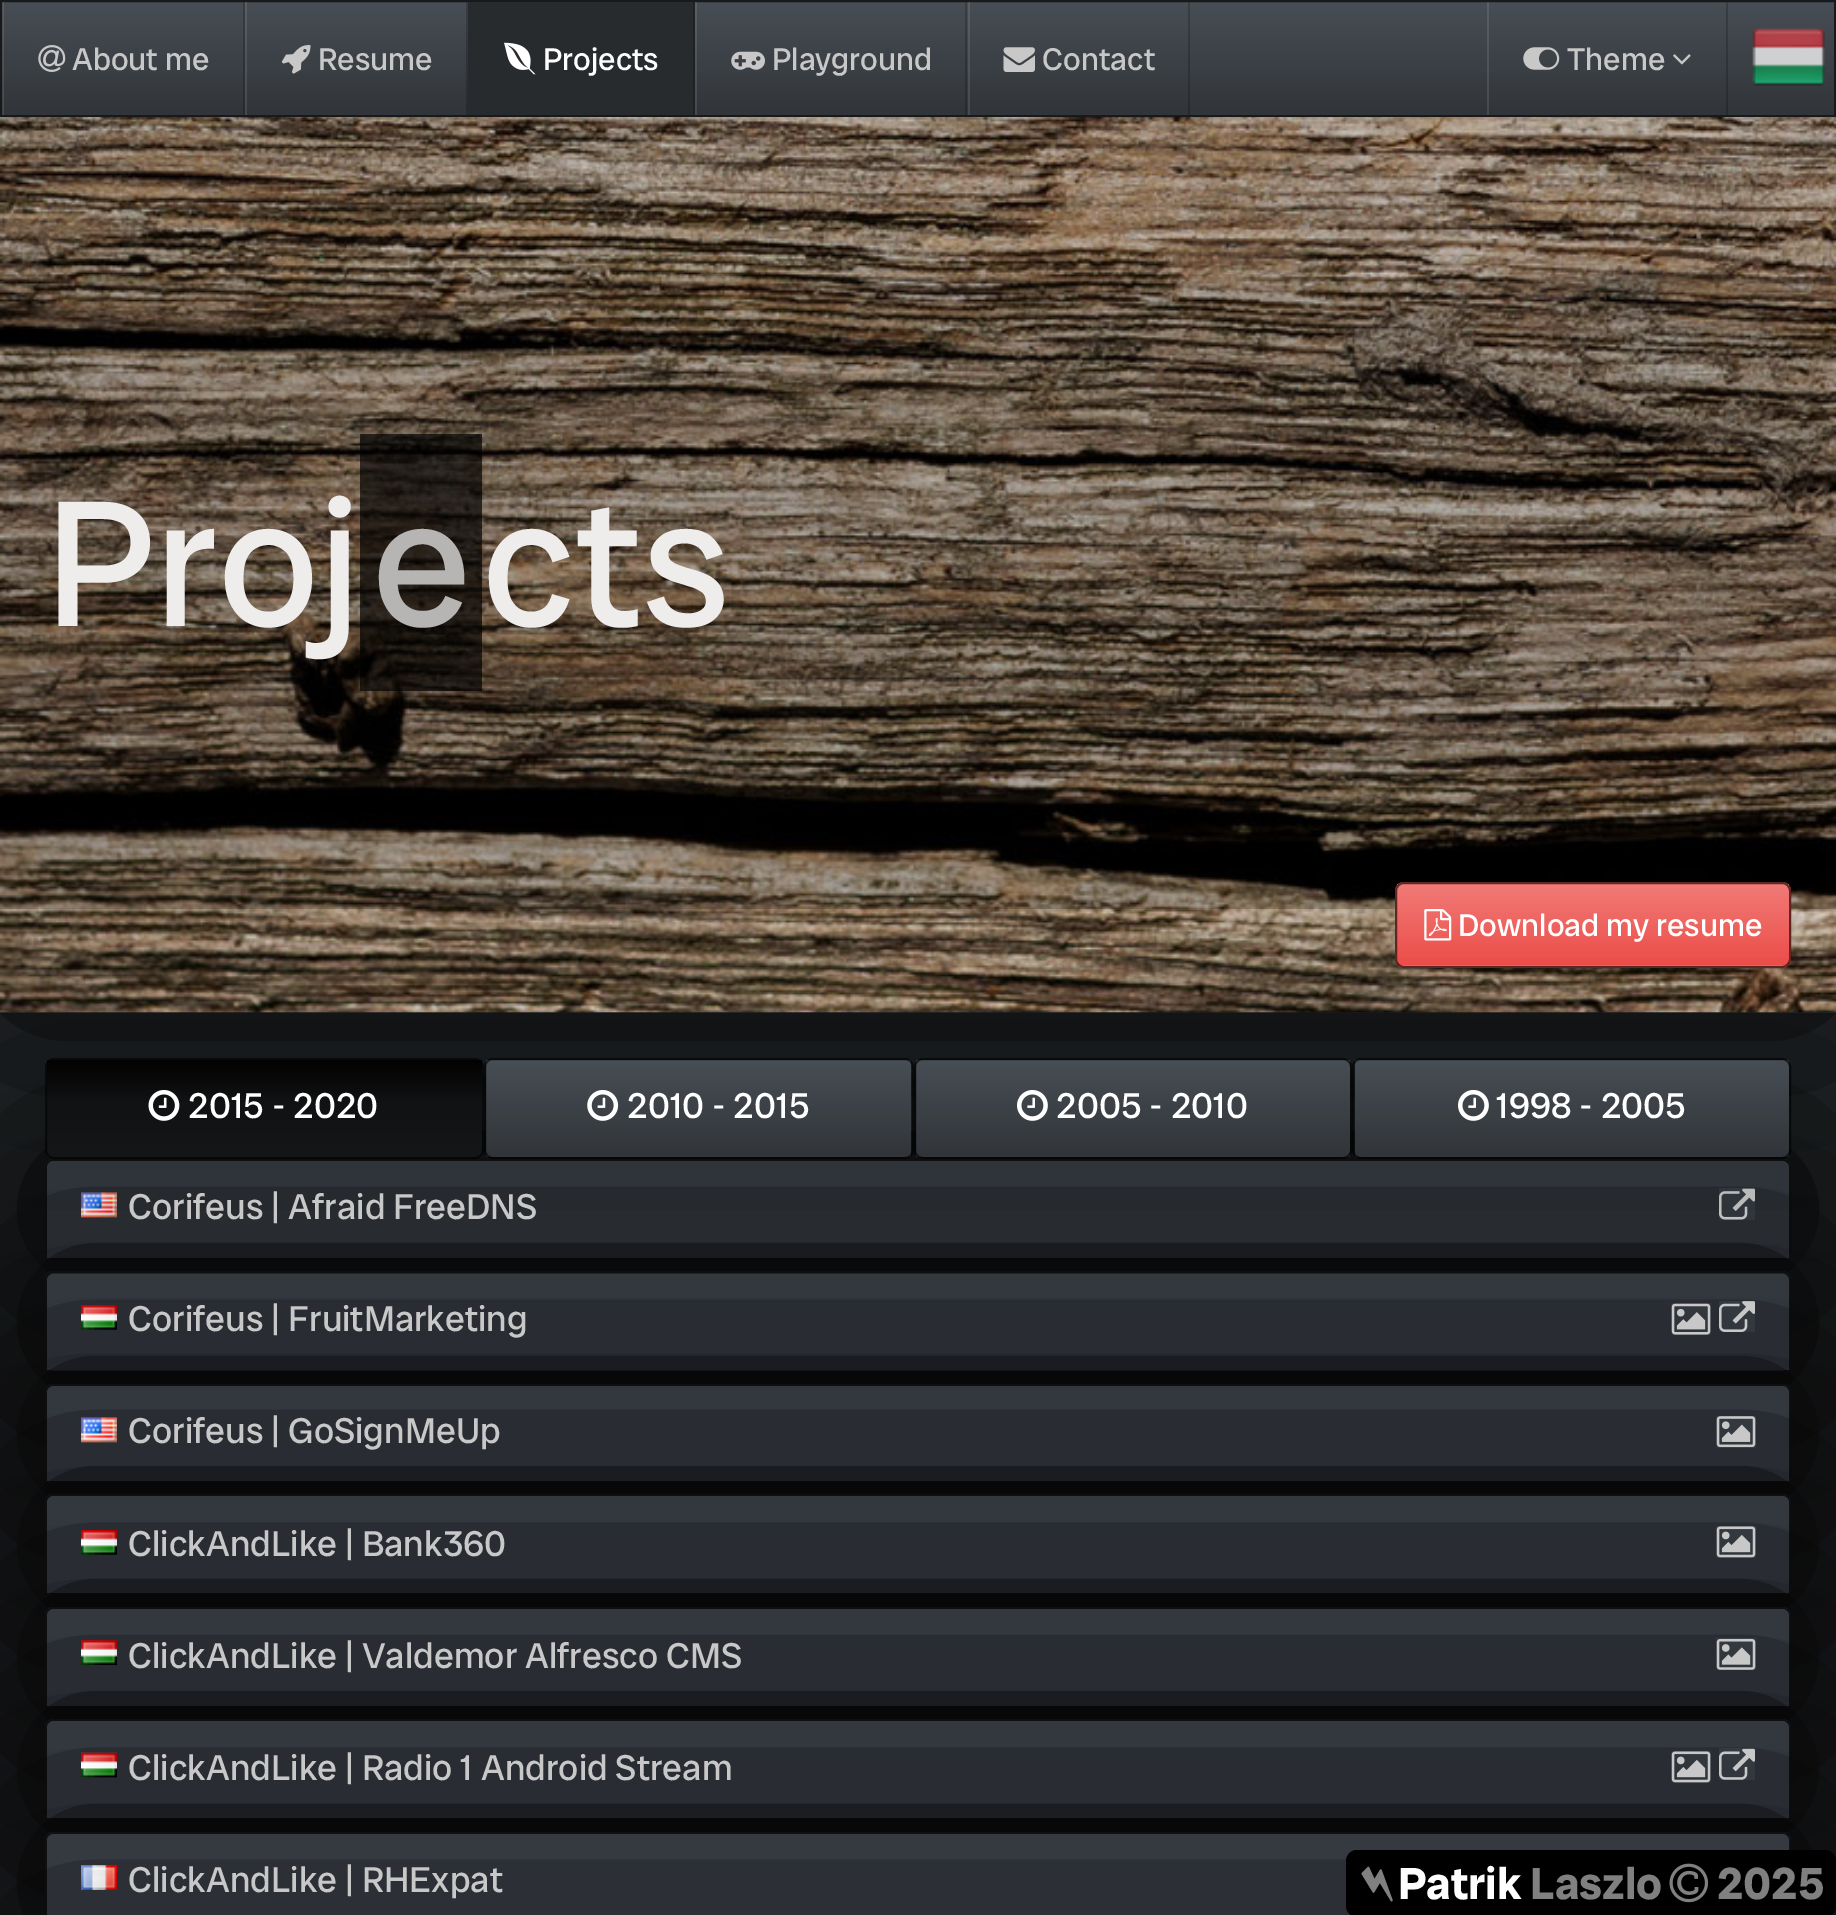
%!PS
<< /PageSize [1836 1915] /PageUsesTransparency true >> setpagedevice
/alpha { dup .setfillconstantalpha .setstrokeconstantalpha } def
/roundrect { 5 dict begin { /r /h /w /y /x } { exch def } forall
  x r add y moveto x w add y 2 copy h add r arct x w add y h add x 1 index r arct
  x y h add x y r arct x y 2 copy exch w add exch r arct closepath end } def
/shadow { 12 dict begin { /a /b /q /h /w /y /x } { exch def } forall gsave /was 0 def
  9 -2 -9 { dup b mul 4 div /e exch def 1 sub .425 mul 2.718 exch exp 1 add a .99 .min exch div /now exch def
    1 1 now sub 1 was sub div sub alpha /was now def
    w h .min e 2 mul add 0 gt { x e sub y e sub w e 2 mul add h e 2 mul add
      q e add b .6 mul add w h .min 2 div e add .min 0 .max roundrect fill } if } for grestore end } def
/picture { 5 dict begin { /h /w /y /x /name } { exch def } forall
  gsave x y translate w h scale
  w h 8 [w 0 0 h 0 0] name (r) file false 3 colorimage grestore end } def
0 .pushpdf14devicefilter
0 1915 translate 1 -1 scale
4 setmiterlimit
0.153 0.169 0.188 setrgbcolor
0 0 1836 1915 rectfill
0 setgray
45 1159 1746 101 9 112.5 1 shadow
0.18 0.2 0.22 setrgbcolor
45 1159 1746 101 9 roundrect fill
0.6 alpha
0 setgray
2 setlinewidth
46 1160 1744 99 8 roundrect stroke
1 alpha
0.243 0.267 0.298 setrgbcolor
newpath 54 1161 moveto 1782 1161 lineto 1786 1161 1789 1164 1789 1168 curveto 1789 1258 lineto 47 1258 lineto 47 1168 lineto 47 1164 50 1161 54 1161 curveto closepath fill
0 setgray
45 1271 1746 102 9 112.5 1 shadow
0.18 0.2 0.22 setrgbcolor
45 1271 1746 102 9 roundrect fill
0.6 alpha
0 setgray
46 1272 1744 100 8 roundrect stroke
1 alpha
0.243 0.267 0.298 setrgbcolor
newpath 54 1274 moveto 1782 1274 lineto 1786 1274 1789 1277 1789 1281 curveto 1789 1370 lineto 47 1370 lineto 47 1281 lineto 47 1277 50 1274 54 1274 curveto closepath fill
0 setgray
45 1384 1746 99 9 112.5 1 shadow
0.18 0.2 0.22 setrgbcolor
45 1384 1746 99 9 roundrect fill
0.6 alpha
0 setgray
46 1385 1744 97 8 roundrect stroke
1 alpha
0.243 0.267 0.298 setrgbcolor
newpath 54 1386 moveto 1782 1386 lineto 1786 1386 1789 1389 1789 1393 curveto 1789 1481 lineto 47 1481 lineto 47 1393 lineto 47 1389 50 1386 54 1386 curveto closepath fill
0 setgray
45 1494 1746 101 9 112.5 1 shadow
(img14.rgb) 81 1192 36 26 picture
(img15.rgb) 1719 1188 36 32 picture
0.18 0.2 0.22 setrgbcolor
45 1494 1746 101 9 roundrect fill
0.6 alpha
0 setgray
46 1495 1744 99 8 roundrect stroke
1 alpha
0.243 0.267 0.298 setrgbcolor
newpath 54 1496 moveto 1782 1496 lineto 1786 1496 1789 1499 1789 1503 curveto 1789 1593 lineto 47 1593 lineto 47 1503 lineto 47 1499 50 1496 54 1496 curveto closepath fill
0 setgray
45 1607 1746 101 9 112.5 1 shadow
(img16.rgb) 81 1305 36 25 picture
(img17.rgb) 1671 1303 40 32 picture
(img18.rgb) 1719 1301 36 31 picture
0 113 1836 900 0 112.5 1 shadow
gsave newpath 2 2 moveto 1834 2 lineto 1834 115 lineto 2 115 lineto closepath clip newpath
<< /ShadingType 2 /ColorSpace /DeviceRGB /Coords [918 2.2 918 115] /Extend [true true] /Function << /FunctionType 3 /Domain [0 1] /Functions [<< /FunctionType 2 /Domain [0 1] /C0 [0.282 0.306 0.333] /C1 [0.227 0.247 0.267] /N 1 >> << /FunctionType 2 /Domain [0 1] /C0 [0.227 0.247 0.267] /C1 [0.192 0.208 0.224] /N 1 >>] /Bounds [0.6] /Encode [0 1 0 1] >> >> shfill grestore
0.09 0.098 0.106 setrgbcolor
1 1 1834 115 rectstroke
0.2 alpha
0 setgray
243 2 2 113 rectfill
0.1 alpha
1 setgray
2 2 2 113 rectfill
1 alpha
(img1.rgb) 38 45 28 27 picture
/RadioCanadaBig-Regular [31.5 0 0 -31.5 0 0] selectfont
0.784 setgray
72 70 moveto (About me) show
0.2 alpha
0 setgray
466 2 2 113 rectfill
0.1 alpha
1 setgray
245 2 2 113 rectfill
1 alpha
(img2.rgb) 281 45 30 29 picture
0.784 setgray
318 70 moveto (Resume) show
0.153 0.169 0.18 setrgbcolor
468 2 225 113 rectfill
0.122 0.133 0.145 setrgbcolor
693 2 2 113 rectfill
(img3.rgb) 504 42 32 33 picture
1 setgray
543 70 moveto (Projects) show
0.2 alpha
0 setgray
965 2 2 113 rectfill
0.1 alpha
1 setgray
695 2 2 113 rectfill
1 alpha
(img4.rgb) 731 51 34 19 picture
0.784 setgray
772 70 moveto (Playground) show
0.2 alpha
0 setgray
1188 2 2 113 rectfill
0.1 alpha
1 setgray
968 2 2 113 rectfill
1 alpha
(img5.rgb) 1003 47 32 25 picture
0.784 setgray
1042 70 moveto (Contact) show
0.2 alpha
0 setgray
1726 2 2 113 rectfill
0.1 alpha
1 setgray
1487 2 2 113 rectfill
1 alpha
(img6.rgb) 1523 47 37 23 picture
0.784 setgray
1567 70 moveto (Theme) show
(img7.rgb) 1673 54 18 11 picture
(img8.rgb) 1752 28 73 58 picture
(img9.rgb) 0 117 1836 896 picture
0.2 alpha
0 setgray
0 117 1836 792 rectfill
0.09 alpha
0 277 1836 736 rectfill
/RadioCanadaBig-Regular [180 0 0 -180 0 0] selectfont
1 alpha
0.937 0.929 0.925 setrgbcolor
45 626 moveto (Proj) show
0.68 alpha
0 setgray
360 434 122 257 rectfill
1 alpha
0.718 0.71 0.702 setrgbcolor
372 626 moveto (e) show
0.937 0.929 0.925 setrgbcolor
482 626 moveto (cts) show
0.933 0.373 0.357 setrgbcolor
1395 882 396 86 9 roundrect fill
gsave
1395 882 396 86 9 roundrect clip newpath
gsave newpath 1397 884 moveto 1789 884 lineto 1789 965 lineto 1397 965 lineto closepath clip newpath
<< /ShadingType 2 /ColorSpace /DeviceRGB /Coords [1593 884 1593 965] /Extend [true true] /Function << /FunctionType 3 /Domain [0 1] /Functions [<< /FunctionType 2 /Domain [0 1] /C0 [0.945 0.478 0.467] /C1 [0.933 0.373 0.357] /N 1 >> << /FunctionType 2 /Domain [0 1] /C0 [0.933 0.373 0.357] /C1 [0.925 0.302 0.286] /N 1 >>] /Bounds [0.6] /Encode [0 1 0 1] >> >> shfill grestore
grestore
0.6 alpha
0 setgray
1396 883 394 84 8 roundrect stroke
1 alpha
(img10.rgb) 1424 909 28 32 picture
/RadioCanadaBig-Regular [31.5 0 0 -31.5 0 0] selectfont
1 setgray
1458 936 moveto (Download my resume) show
gsave
45 1058 439 101 9 roundrect clip newpath
gsave newpath 47 1060 moveto 482 1060 lineto 482 1157 lineto 47 1157 lineto closepath clip newpath
<< /ShadingType 2 /ColorSpace /DeviceRGB /Coords [264 1060 264 1157] /Extend [true true] /Function << /FunctionType 3 /Domain [0 1] /Functions [<< /FunctionType 2 /Domain [0 1] /C0 [0.008 0.008 0.008] /C1 [0.063 0.067 0.071] /N 1 >> << /FunctionType 2 /Domain [0 1] /C0 [0.063 0.067 0.071] /C1 [0.078 0.086 0.094] /N 1 >>] /Bounds [0.4] /Encode [0 1 0 1] >> >> shfill grestore
grestore
0.6 alpha
0 setgray
46 1059 437 99 8 roundrect stroke
1 alpha
(img11.rgb) 148 1090 32 31 picture
/RadioCanadaBig-Regular [36 0 0 -36 0 0] selectfont
1 setgray
188 1118 moveto (2015 - 2020) show
gsave
484 1058 430 101 9 roundrect clip newpath
gsave newpath 486 1060 moveto 911 1060 lineto 911 1157 lineto 486 1157 lineto closepath clip newpath
<< /ShadingType 2 /ColorSpace /DeviceRGB /Coords [699 1060 699 1157] /Extend [true true] /Function << /FunctionType 3 /Domain [0 1] /Functions [<< /FunctionType 2 /Domain [0 1] /C0 [0.282 0.306 0.333] /C1 [0.227 0.247 0.267] /N 1 >> << /FunctionType 2 /Domain [0 1] /C0 [0.227 0.247 0.267] /C1 [0.192 0.208 0.224] /N 1 >>] /Bounds [0.6] /Encode [0 1 0 1] >> >> shfill grestore
grestore
0.6 alpha
0 setgray
485 1059 428 99 8 roundrect stroke
1 alpha
(img12.rgb) 587 1090 32 31 picture
1 setgray
627 1118 moveto (2010 - 2015) show
gsave
914 1058 438 101 9 roundrect clip newpath
gsave newpath 916 1060 moveto 1350 1060 lineto 1350 1157 lineto 916 1157 lineto closepath clip newpath
<< /ShadingType 2 /ColorSpace /DeviceRGB /Coords [1133 1060 1133 1157] /Extend [true true] /Function << /FunctionType 3 /Domain [0 1] /Functions [<< /FunctionType 2 /Domain [0 1] /C0 [0.282 0.306 0.333] /C1 [0.227 0.247 0.267] /N 1 >> << /FunctionType 2 /Domain [0 1] /C0 [0.227 0.247 0.267] /C1 [0.192 0.208 0.224] /N 1 >>] /Bounds [0.6] /Encode [0 1 0 1] >> >> shfill grestore
grestore
0.6 alpha
0 setgray
915 1059 436 99 8 roundrect stroke
1 alpha
(img13.rgb) 1017 1090 31 31 picture
1 setgray
1056 1118 moveto (2005 - 2010) show
gsave
1352 1058 439 101 9 roundrect clip newpath
gsave newpath 1355 1060 moveto 1789 1060 lineto 1789 1157 lineto 1355 1157 lineto closepath clip newpath
<< /ShadingType 2 /ColorSpace /DeviceRGB /Coords [1572 1060 1572 1157] /Extend [true true] /Function << /FunctionType 3 /Domain [0 1] /Functions [<< /FunctionType 2 /Domain [0 1] /C0 [0.282 0.306 0.333] /C1 [0.227 0.247 0.267] /N 1 >> << /FunctionType 2 /Domain [0 1] /C0 [0.227 0.247 0.267] /C1 [0.192 0.208 0.224] /N 1 >>] /Bounds [0.6] /Encode [0 1 0 1] >> >> shfill grestore
grestore
0.6 alpha
0 setgray
1353 1059 437 99 8 roundrect stroke
1 alpha
(img13.rgb) 1458 1090 31 31 picture
1 setgray
1496 1118 moveto (1998 - 2005) show
0.784 setgray
128 1219 moveto (Corifeus | Afraid FreeDNS) show
128 1331 moveto (Corifeus | FruitMarketing) show
0.18 0.2 0.22 setrgbcolor
45 1607 1746 101 9 roundrect fill
0.6 alpha
0 setgray
46 1608 1744 99 8 roundrect stroke
1 alpha
0.243 0.267 0.298 setrgbcolor
newpath 54 1609 moveto 1782 1609 lineto 1786 1609 1789 1612 1789 1616 curveto 1789 1706 lineto 47 1706 lineto 47 1616 lineto 47 1612 50 1609 54 1609 curveto closepath fill
0 setgray
45 1719 1746 101 9 112.5 1 shadow
(img19.rgb) 81 1417 36 26 picture
0.784 setgray
128 1443 moveto (Corifeus | GoSignMeUp) show
(img20.rgb) 1716 1416 40 32 picture
0.18 0.2 0.22 setrgbcolor
45 1719 1746 101 9 roundrect fill
0.6 alpha
0 setgray
46 1720 1744 99 8 roundrect stroke
1 alpha
0.243 0.267 0.298 setrgbcolor
newpath 54 1721 moveto 1782 1721 lineto 1786 1721 1789 1724 1789 1728 curveto 1789 1818 lineto 47 1818 lineto 47 1728 lineto 47 1724 50 1721 54 1721 curveto closepath fill
0 setgray
45 1832 1746 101 9 112.5 1 shadow
(img21.rgb) 81 1530 36 25 picture
0.784 setgray
128 1556 moveto (ClickAndLike | Bank360) show
(img22.rgb) 1716 1526 40 32 picture
0.18 0.2 0.22 setrgbcolor
45 1832 1746 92 9 roundrect fill
0.6 alpha
0 setgray
46 1833 1744 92 8 roundrect stroke
1 alpha
0.243 0.267 0.298 setrgbcolor
newpath 54 1834 moveto 1782 1834 lineto 1786 1834 1789 1837 1789 1841 curveto 1789 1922 lineto 47 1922 lineto 47 1841 lineto 47 1837 50 1834 54 1834 curveto closepath fill
0 setgray
45 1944 1746 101 9 112.5 1 shadow
(img23.rgb) 81 1640 36 25 picture
0.784 setgray
128 1668 moveto (ClickAndLike | Valdemor Alfresco CMS) show
(img24.rgb) 1716 1638 40 32 picture
(img25.rgb) 81 1752 36 26 picture
128 1780 moveto (ClickAndLike | Radio 1 Android Stream) show
(img26.rgb) 1671 1751 40 32 picture
(img27.rgb) 1719 1748 36 32 picture
(img28.rgb) 81 1865 36 25 picture
128 1892 moveto (ClickAndLike | RHExpat) show
0 setgray
1346 1850 490 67 11 roundrect fill
(img29.rgb) 1361 1866 32 36 picture
/RadioCanadaBig-Bold [45 0 0 -45 0 0] selectfont
1 setgray
1398 1899 moveto (Patrik) show
0.502 setgray
1530 1899 moveto (Laszlo) show
(img30.rgb) 1669 1863 40 40 picture
1717 1899 moveto (2025) show
.poppdf14devicefilter showpage
